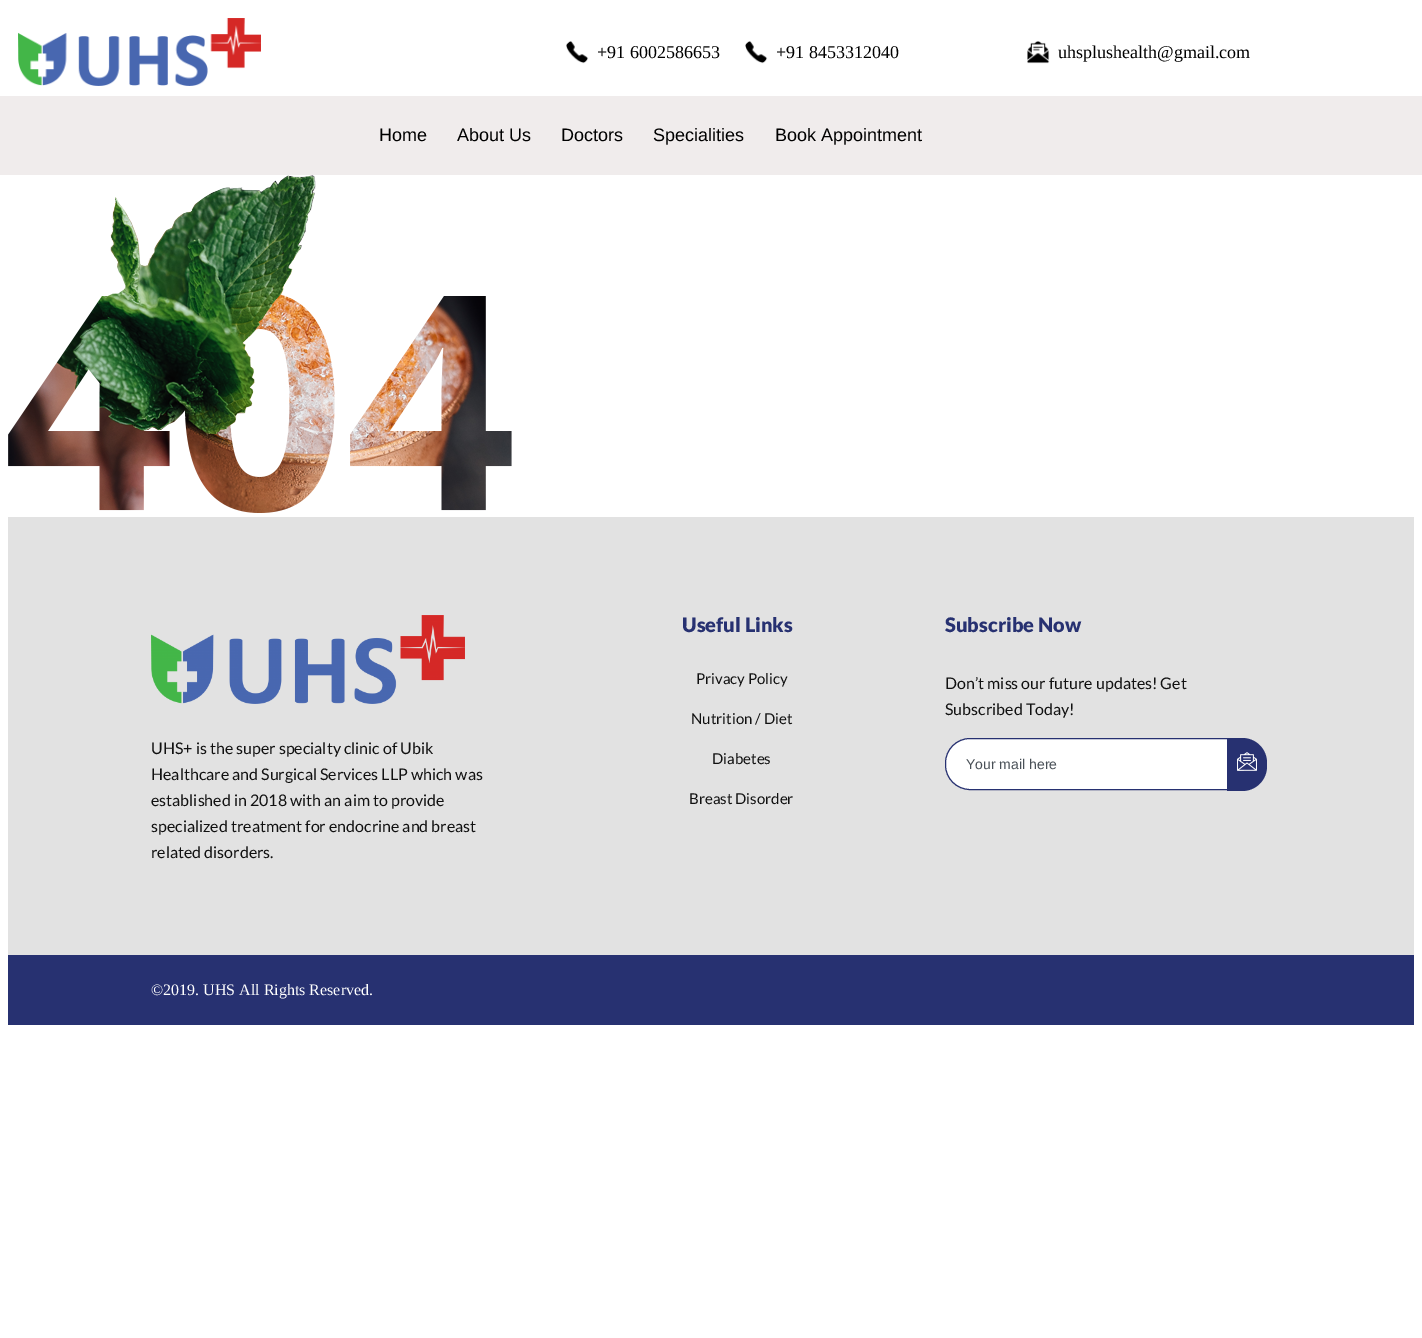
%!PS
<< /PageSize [1422 1338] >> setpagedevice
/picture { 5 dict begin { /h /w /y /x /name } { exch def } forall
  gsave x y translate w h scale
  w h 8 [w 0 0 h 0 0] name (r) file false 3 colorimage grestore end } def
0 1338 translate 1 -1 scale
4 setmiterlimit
1 setgray
0 0 1422 1338 rectfill
(img1.rgb) 18 18 243 68 picture
(img2.rgb) 566 41 23 23 picture
/LiberationSerif-Regular [18 0 0 -18 0 0] selectfont
0 setgray
597 58 moveto (+91 6002586653) show
(img3.rgb) 745 41 23 23 picture
776 58 moveto (+91 8453312040) show
(img4.rgb) 1027 41 23 23 picture
1058 58 moveto (uhsplushealth@gmail.com) show
0.941 0.925 0.925 setrgbcolor
0 96 1422 79 rectfill
/LiberationSans-Regular [18 0 0 -18 0 0] selectfont
0 setgray
379 141 moveto (Home) show
457 141 moveto (About Us) show
561 141 moveto (Doctors) show
653 141 moveto (Specialities) show
775 141 moveto (Book Appointment) show
(img5.rgb) 8 175 504 338 picture
0.886 setgray
8 517 1406 438 rectfill
/Lato-Black [20 0 0 -20 0 0] selectfont
0.153 0.192 0.443 setrgbcolor
682 632 moveto (Useful Links) show
/Lato-Regular [15 0 0 -15 0 0] selectfont
0.067 setgray
696 684 moveto (Privacy Policy) show
691 724 moveto (Nutrition / Diet) show
712 764 moveto (Diabetes) show
689 804 moveto (Breast Disorder) show
/Lato-Black [20 0 0 -20 0 0] selectfont
0.153 0.192 0.443 setrgbcolor
945 632 moveto (Subscribe Now) show
/Lato-Regular [16 0 0 -16 0 0] selectfont
0.067 setgray
945 689 moveto (Don’t miss our future updates! Get) show
945 715 moveto (Subscribed Today!) show
1 setgray
newpath 970 738.5 moveto 1228.5 738.5 lineto 1228.5 789.5 lineto 970 789.5 lineto 956.5 789.5 945.5 778.5 945.5 765 curveto 945.5 763 lineto 945.5 749.5 956.5 738.5 970 738.5 curveto closepath gsave fill grestore
0.153 0.192 0.443 setrgbcolor
stroke
/LiberationSans-Regular [14 0 0 -14 0 0] selectfont
0.286 0.314 0.341 setrgbcolor
966 769 moveto (Your mail here) show
0.153 0.192 0.443 setrgbcolor
newpath 1227 738 moveto 1242 738 lineto 1256 738 1267 749 1267 763 curveto 1267 766 lineto 1267 780 1256 791 1242 791 curveto 1227 791 lineto closepath fill
(img6.rgb) 1237 752 20 19 picture
(img7.rgb) 151 615 314 89 picture
/Lato-Regular [16 0 0 -16 0 0] selectfont
0.067 setgray
151 754 moveto (UHS+ is the super specialty clinic of Ubik) show
151 780 moveto (Healthcare and Surgical Services LLP which was) show
151 806 moveto (established in 2018 with an aim to provide) show
151 832 moveto (specialized treatment for endocrine and breast) show
151 858 moveto (related disorders.) show
0.153 0.192 0.443 setrgbcolor
8 955 1406 70 rectfill
/LiberationSerif-Regular [16 0 0 -16 0 0] selectfont
1 setgray
151 995 moveto (©2019. UHS All Rights Reserved.) show
showpage
